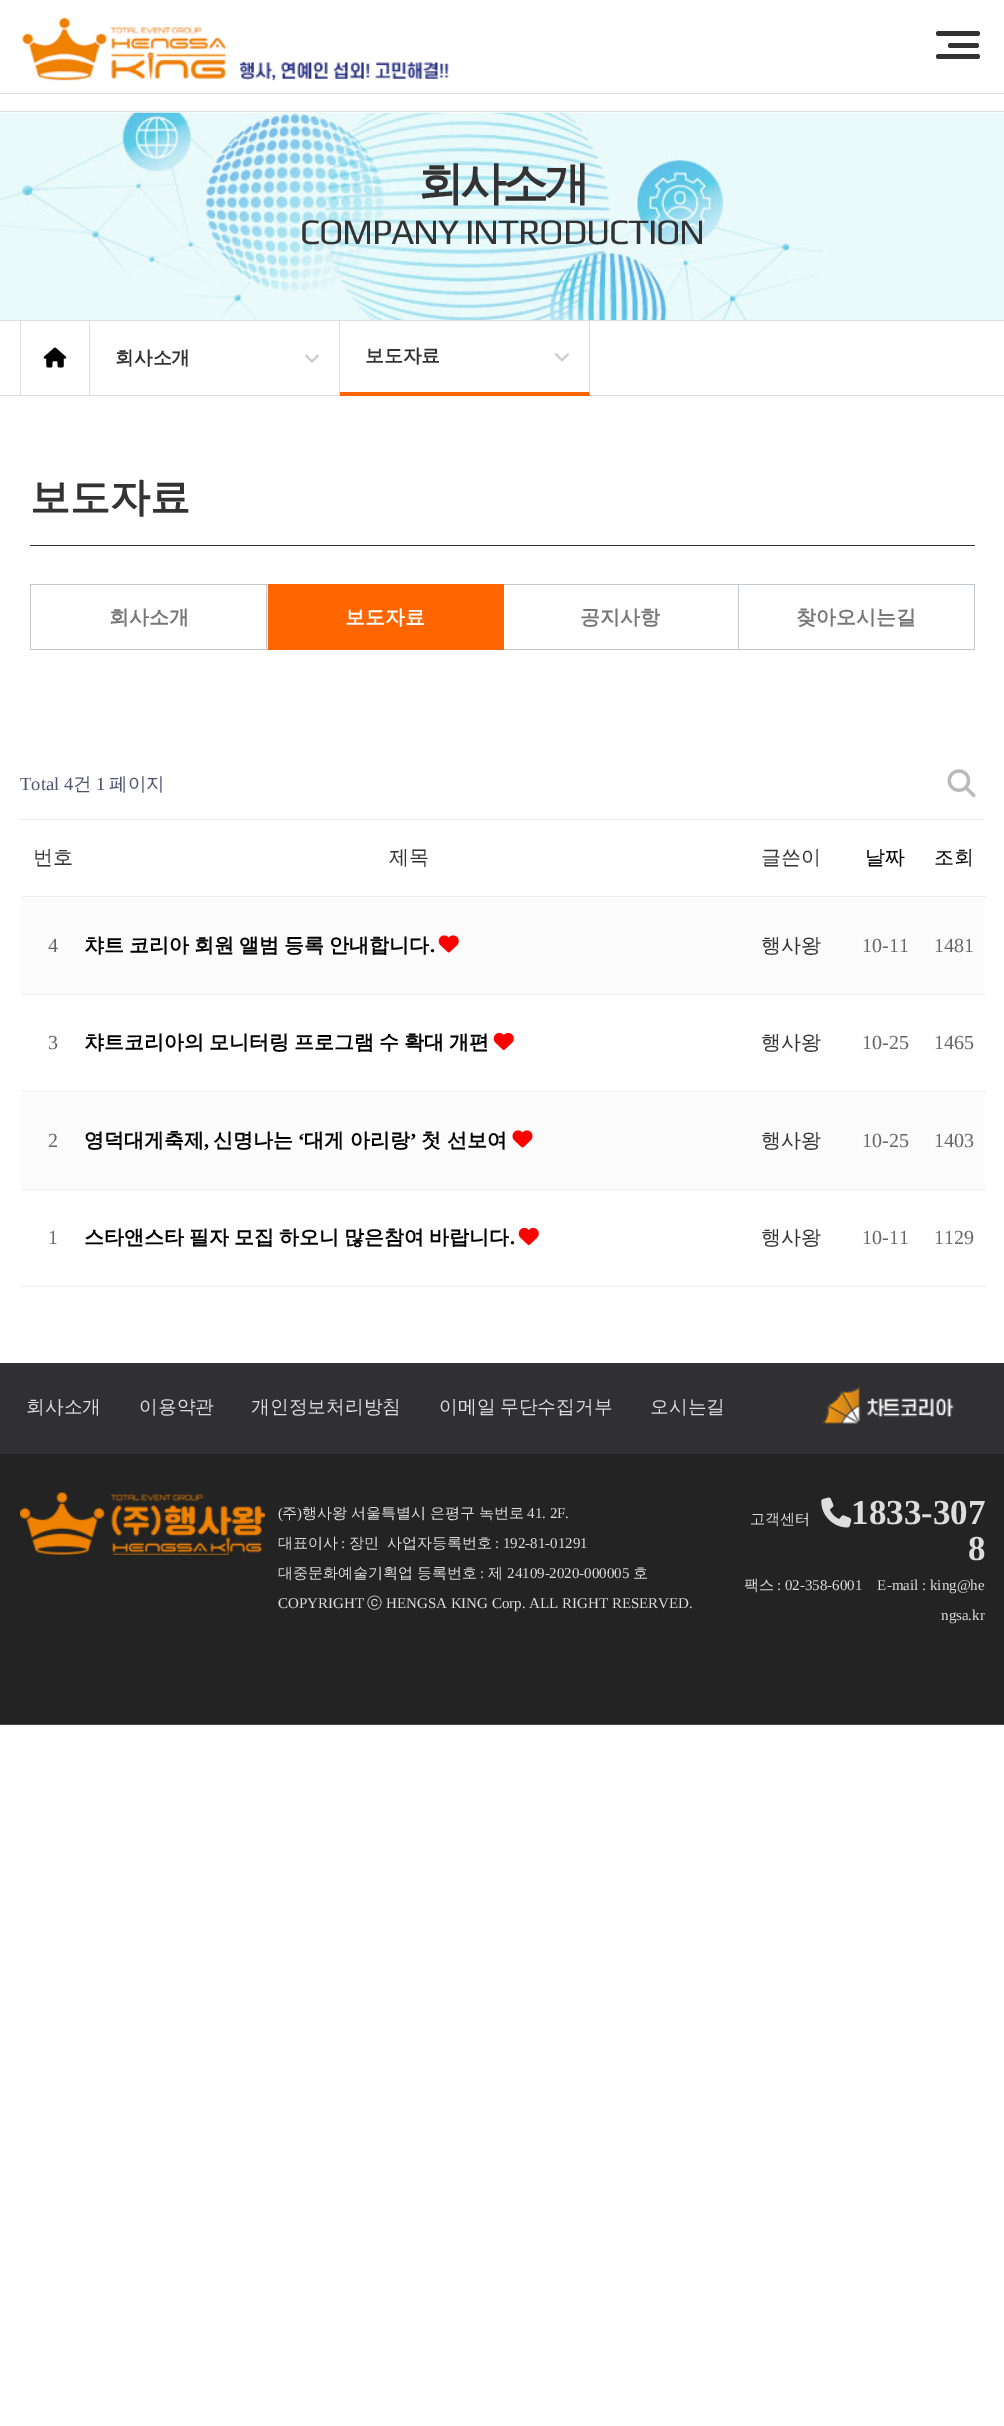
%!PS
<< /PageSize [1004 2426] >> setpagedevice
/roundrect { 5 dict begin { /r /h /w /y /x } { exch def } forall
  x r add y moveto x w add y 2 copy h add r arct x w add y h add x 1 index r arct
  x y h add x y r arct x y 2 copy exch w add exch r arct closepath end } def
/picture { 5 dict begin { /h /w /y /x /name } { exch def } forall
  gsave x y translate w h scale
  w h 8 [w 0 0 h 0 0] name (r) file false 3 colorimage grestore end } def
0 2426 translate 1 -1 scale
4 setmiterlimit
1 setgray
0 0 1004 2426 rectfill
0.867 setgray
0 111 1004 1 rectfill
0 93 1004 1 rectfill
(img1.rgb) 22 17 427 64 picture
0.2 setgray
936 31 44 5 2.5 roundrect fill
948 43 31 5 2.5 roundrect fill
936 54 44 5 2.5 roundrect fill
0.867 setgray
0 320 1004 1 rectfill
(img2.rgb) 0 112 1004 208 picture
/WenQuanYiZenHei-Bold [46 0 0 -46 0 0] selectfont
0.2 setgray
418 199 moveto -4 0 (회사소개) ashow
/Play-Regular [36 0 0 -36 0 0] selectfont
300 244 moveto -1.25 0 (COMPANY INTRODUCTION) ashow
0.867 setgray
0 395 1004 1 rectfill
89 321 1 75 rectfill
20 321 1 75 rectfill
(img3.rgb) 43 347 24 21 picture
339 321 1 75 rectfill
/WenQuanYiZenHei-Bold [18.75 0 0 -18.75 0 0] selectfont
0.2 setgray
115 364 moveto (회사소개) show
(img4.rgb) 305 354 14 9 picture
0.867 setgray
newpath 590 321 moveto 590 396 lineto 589 392 lineto 589 321 lineto closepath fill
1 0.4 0 setrgbcolor
newpath 590 396 moveto 340 396 lineto 340 392 lineto 589 392 lineto closepath fill
0.2 setgray
365 362 moveto (보도자료) show
(img5.rgb) 555 353 14 9 picture
30 545 945 1 rectfill
/WenQuanYiZenHei-Bold [40 0 0 -40 0 0] selectfont
30 511 moveto (보도자료) show
0.773 0.78 0.82 setrgbcolor
30 584 1 66 rectfill
31 584 237 1 rectfill
266 584 1 66 rectfill
31 649 237 1 rectfill
/WenQuanYiZenHei-Bold [20 0 0 -20 0 0] selectfont
0.467 setgray
109 624 moveto (회사소개) show
1 0.4 0 setrgbcolor
268 584 236 66 rectfill
1 setgray
345 624 moveto (보도자료) show
0.773 0.78 0.82 setrgbcolor
504 584 471 1 rectfill
738 584 1 66 rectfill
504 649 235 1 rectfill
0.467 setgray
580 624 moveto (공지사항) show
0.773 0.78 0.82 setrgbcolor
974 584 1 66 rectfill
739 649 236 1 rectfill
0.467 setgray
796 624 moveto (찾아오시는길) show
/LiberationSerif-Regular [18.5 0 0 -18.5 0 0] selectfont
0.306 0.329 0.435 setrgbcolor
20 790 moveto (Total 4) show
/WenQuanYiZenHei-Medium [18.5 0 0 -18.5 0 0] selectfont
73 790 moveto (건) show
/LiberationSerif-Regular [18.5 0 0 -18.5 0 0] selectfont
96 790 moveto (1) show
/WenQuanYiZenHei-Medium [18.5 0 0 -18.5 0 0] selectfont
109 790 moveto (페이지) show
(img6.rgb) 947 769 29 29 picture
0.925 setgray
20 819 965 1 rectfill
20 1286 1 1 rectfill
/WenQuanYiZenHei-Medium [20 0 0 -20 0 0] selectfont
0.2 setgray
33 864 moveto (번호) show
389 864 moveto (제목) show
761 864 moveto (글쓴이) show
0 setgray
865 864 moveto (날짜) show
0.925 setgray
21 896 965 1 rectfill
0 setgray
934 864 moveto (조회) show
0.984 setgray
21 898 964 96 rectfill
/LiberationSerif-Regular [20 0 0 -20 0 0] selectfont
0.4 setgray
48 952 moveto (4) show
/WenQuanYiZenHei-Bold [20 0 0 -20 0 0] selectfont
0 setgray
84 952 moveto -1 0 32 (챠트 코리아 회원 앨범 등록 안내합니다) widthshow
/LiberationSerif-Bold [20 0 0 -20 0 0] selectfont
430 952 moveto (.) show
(img7.rgb) 438 935 21 18 picture
/WenQuanYiZenHei-Medium [20 0 0 -20 0 0] selectfont
0.2 setgray
761 952 moveto (행사왕) show
/LiberationSerif-Regular [20 0 0 -20 0 0] selectfont
0.4 setgray
862 952 moveto (10-11) show
934 952 moveto (1481) show
48 1049 moveto (3) show
/WenQuanYiZenHei-Bold [20 0 0 -20 0 0] selectfont
0 setgray
84 1049 moveto -1 0 32 (챠트코리아의 모니터링 프로그램 수 확대 개편) widthshow
(img8.rgb) 493 1032 21 18 picture
/WenQuanYiZenHei-Medium [20 0 0 -20 0 0] selectfont
0.2 setgray
761 1049 moveto (행사왕) show
/LiberationSerif-Regular [20 0 0 -20 0 0] selectfont
0.4 setgray
862 1049 moveto (10-25) show
0.925 0.941 0.945 setrgbcolor
21 994 965 1 rectfill
0.4 setgray
934 1049 moveto (1465) show
0.984 setgray
21 1093 964 96 rectfill
0.4 setgray
48 1147 moveto (2) show
/WenQuanYiZenHei-Bold [20 0 0 -20 0 0] selectfont
0 setgray
84 1147 moveto (영덕대게축제) show
213 1147 moveto (신명나는) show
/LiberationSerif-Bold [20 0 0 -20 0 0] selectfont
298 1147 moveto (‘) show
/WenQuanYiZenHei-Bold [20 0 0 -20 0 0] selectfont
304 1147 moveto (대게 아리랑) show
/LiberationSerif-Bold [20 0 0 -20 0 0] selectfont
410 1147 moveto (’) show
/WenQuanYiZenHei-Bold [20 0 0 -20 0 0] selectfont
421 1147 moveto (첫 선보여) show
(img9.rgb) 512 1130 21 18 picture
/LiberationSerif-Bold [20 0 0 -20 0 0] selectfont
204 1147 moveto (,) show
/WenQuanYiZenHei-Medium [20 0 0 -20 0 0] selectfont
0.2 setgray
761 1147 moveto (행사왕) show
/LiberationSerif-Regular [20 0 0 -20 0 0] selectfont
0.4 setgray
862 1147 moveto (10-25) show
0.925 0.941 0.945 setrgbcolor
21 1091 965 1 rectfill
0.4 setgray
934 1147 moveto (1403) show
48 1244 moveto (1) show
/WenQuanYiZenHei-Bold [20 0 0 -20 0 0] selectfont
0 setgray
84 1244 moveto -1 0 32 (스타앤스타 필자 모집 하오니 많은참여 바랍니다) widthshow
/LiberationSerif-Bold [20 0 0 -20 0 0] selectfont
510 1244 moveto (.) show
(img8.rgb) 518 1227 21 18 picture
/WenQuanYiZenHei-Medium [20 0 0 -20 0 0] selectfont
0.2 setgray
761 1244 moveto (행사왕) show
/LiberationSerif-Regular [20 0 0 -20 0 0] selectfont
0.4 setgray
862 1244 moveto (10-11) show
0.925 0.941 0.945 setrgbcolor
21 1189 965 1 rectfill
21 1286 965 1 rectfill
0.4 setgray
934 1244 moveto (1129) show
0.137 setgray
0 1454 1004 270 rectfill
0.282 0.271 0.259 setrgbcolor
0 1724 1004 1 rectfill
0.188 0.188 0.196 setrgbcolor
0 1363 1004 91 rectfill
/WenQuanYiZenHei-Medium [18.75 0 0 -18.75 0 0] selectfont
0.867 setgray
26 1413 moveto (회사소개) show
139 1413 moveto (이용약관) show
251 1413 moveto (개인정보처리방침) show
439 1413 moveto -1 0 32 (이메일 무단수집거부) widthshow
650 1413 moveto (오시는길) show
(img10.rgb) 822 1386 132 38 picture
(img11.rgb) 20 1492 245 63 picture
/LiberationSerif-Regular [15 0 0 -15 0 0] selectfont
278 1518 moveto (\() show
/WenQuanYiZenHei-Medium [15 0 0 -15 0 0] selectfont
282 1518 moveto (주) show
/LiberationSerif-Regular [15 0 0 -15 0 0] selectfont
297 1518 moveto (\)) show
/WenQuanYiZenHei-Medium [15 0 0 -15 0 0] selectfont
302 1518 moveto (행사왕) show
351 1518 moveto (서울특별시) show
430 1518 moveto (은평구) show
479 1518 moveto (녹번로) show
/LiberationSerif-Regular [15 0 0 -15 0 0] selectfont
527 1518 moveto (41. 2F.) show
/WenQuanYiZenHei-Medium [15 0 0 -15 0 0] selectfont
278 1548 moveto (대표이사) show
/LiberationSerif-Regular [15 0 0 -15 0 0] selectfont
341 1548 moveto (:) show
/WenQuanYiZenHei-Medium [15 0 0 -15 0 0] selectfont
349 1548 moveto (장민) show
387 1548 moveto (사업자등록번호) show
/LiberationSerif-Regular [15 0 0 -15 0 0] selectfont
495 1548 moveto (: 192-81-01291) show
/WenQuanYiZenHei-Medium [15 0 0 -15 0 0] selectfont
278 1578 moveto (대중문화예술기획업 등록번호) show
/LiberationSerif-Regular [15 0 0 -15 0 0] selectfont
480 1578 moveto (:) show
/WenQuanYiZenHei-Medium [15 0 0 -15 0 0] selectfont
488 1578 moveto (제) show
/LiberationSerif-Regular [15 0 0 -15 0 0] selectfont
507 1578 moveto (24109-2020-000005) show
/WenQuanYiZenHei-Medium [15 0 0 -15 0 0] selectfont
633 1578 moveto (호) show
/LiberationSerif-Regular [15 0 0 -15 0 0] selectfont
278 1608 moveto (COPYRIGHT) show
/WenQuanYiZenHei-Medium [15 0 0 -15 0 0] selectfont
367 1608 moveto (ⓒ) show
/LiberationSerif-Regular [15 0 0 -15 0 0] selectfont
386 1608 moveto (HENGSA KING Corp. ALL RIGHT RESERVED.) show
/WenQuanYiZenHei-Medium [15 0 0 -15 0 0] selectfont
750 1524 moveto (고객센터) show
(img12.rgb) 821 1497 31 31 picture
/LiberationSerif-Bold [35 0 0 -35 0 0] selectfont
851 1524 moveto (1833-307) show
968 1560 moveto (8) show
/WenQuanYiZenHei-Medium [15 0 0 -15 0 0] selectfont
744 1590 moveto (팩스) show
/LiberationSerif-Regular [15 0 0 -15 0 0] selectfont
777 1590 moveto (: 02-358-6001    E-mail : king@he) show
941 1620 moveto (ngsa.kr) show
showpage
